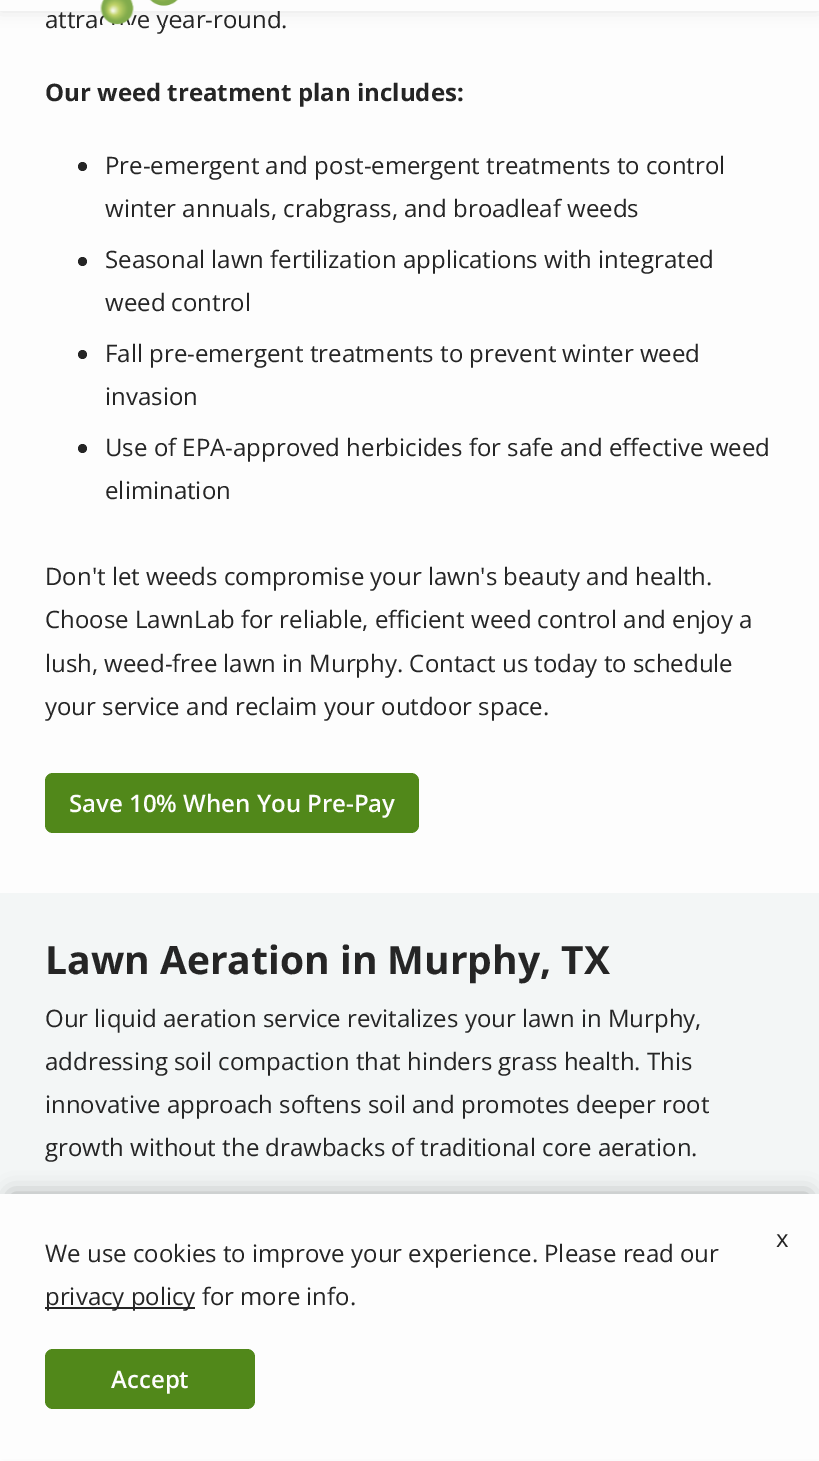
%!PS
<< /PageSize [819 1461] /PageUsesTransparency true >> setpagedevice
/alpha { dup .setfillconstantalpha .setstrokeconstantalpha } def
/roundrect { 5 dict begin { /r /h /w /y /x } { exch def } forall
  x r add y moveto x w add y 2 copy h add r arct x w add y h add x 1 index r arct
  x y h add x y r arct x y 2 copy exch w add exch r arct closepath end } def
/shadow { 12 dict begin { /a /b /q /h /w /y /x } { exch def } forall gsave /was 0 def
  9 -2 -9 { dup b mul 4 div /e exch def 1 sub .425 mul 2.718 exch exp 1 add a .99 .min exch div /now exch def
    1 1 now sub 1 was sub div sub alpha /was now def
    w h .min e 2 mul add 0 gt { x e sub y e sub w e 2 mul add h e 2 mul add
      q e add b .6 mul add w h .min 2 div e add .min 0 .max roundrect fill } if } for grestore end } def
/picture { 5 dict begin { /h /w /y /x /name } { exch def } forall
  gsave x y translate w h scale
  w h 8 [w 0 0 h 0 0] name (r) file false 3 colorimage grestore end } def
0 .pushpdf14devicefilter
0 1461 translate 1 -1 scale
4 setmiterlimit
0.992 setgray
0 0 819 1461 rectfill
0 setgray
0 -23 819 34 0 7.5 0.1 shadow
/OpenSans-Regular [24 0 0 -24 0 0] selectfont
0.145 setgray
137 28 moveto (e year-round.) show
0.992 setgray
0 0 819 11 rectfill
(img1.rgb) 100 0 78 25 picture
0.145 setgray
45 28 moveto (attra) show
/OpenSans-Bold [24 0 0 -24 0 0] selectfont
45 101 moveto (Our weed treatment plan includes:) show
newpath 82.5 166.5 4.5 0 360 arc closepath fill
/OpenSans-Regular [24 0 0 -24 0 0] selectfont
105 174 moveto (Pre-emergent and post-emergent treatments to control) show
105 217 moveto (winter annuals, crabgrass, and broadleaf weeds) show
newpath 82.5 261.5 4.5 0 360 arc closepath fill
105 268 moveto (Seasonal lawn fertilization applications with integrated) show
105 311 moveto (weed control) show
newpath 82.5 354.5 4.5 0 360 arc closepath fill
105 362 moveto (Fall pre-emergent treatments to prevent winter weed) show
105 405 moveto (invasion) show
newpath 82.5 448.5 4.5 0 360 arc closepath fill
105 456 moveto (Use of EPA-approved herbicides for safe and effective weed) show
105 499 moveto (elimination) show
45 585 moveto (Don't let weeds compromise your lawn's beauty and health.) show
45 628 moveto (Choose LawnLab for reliable, efficient weed control and enjoy a) show
45 672 moveto (lush, weed-free lawn in Murphy. Contact us today to schedule) show
45 715 moveto (your service and reclaim your outdoor space.) show
0.318 0.533 0.102 setrgbcolor
45 773 374 60 8 roundrect fill
/OpenSans-SemiBold [24 0 0 -24 0 0] selectfont
0.992 setgray
69 812 moveto (Save 10% When You Pre-Pay) show
0.953 0.965 0.965 setrgbcolor
0 893 819 301 rectfill
/OpenSans-Bold [39 0 0 -39 0 0] selectfont
0.145 setgray
45 974 moveto (Lawn Aeration in Murphy, TX) show
/OpenSans-Regular [24 0 0 -24 0 0] selectfont
45 1027 moveto (Our liquid aeration service revitalizes your lawn in Murphy,) show
45 1070 moveto (addressing soil compaction that hinders grass health. This) show
45 1113 moveto (innovative approach softens soil and promotes deeper root) show
45 1156 moveto (growth without the drawbacks of traditional core aeration.) show
0 setgray
11 1194 798 246 0 10.5 0.3 shadow
0.992 setgray
0 1194 819 265 rectfill
0.145 setgray
776 1247 moveto (x) show
45 1262 moveto (We use cookies to improve your experience. Please read our) show
45 1307 150 2 rectfill
45 1305 moveto (privacy policy for more info.) show
0.318 0.533 0.102 setrgbcolor
45 1349 210 60 8 roundrect fill
/OpenSans-SemiBold [24 0 0 -24 0 0] selectfont
0.992 setgray
111 1388 moveto (Accept) show
.poppdf14devicefilter showpage
